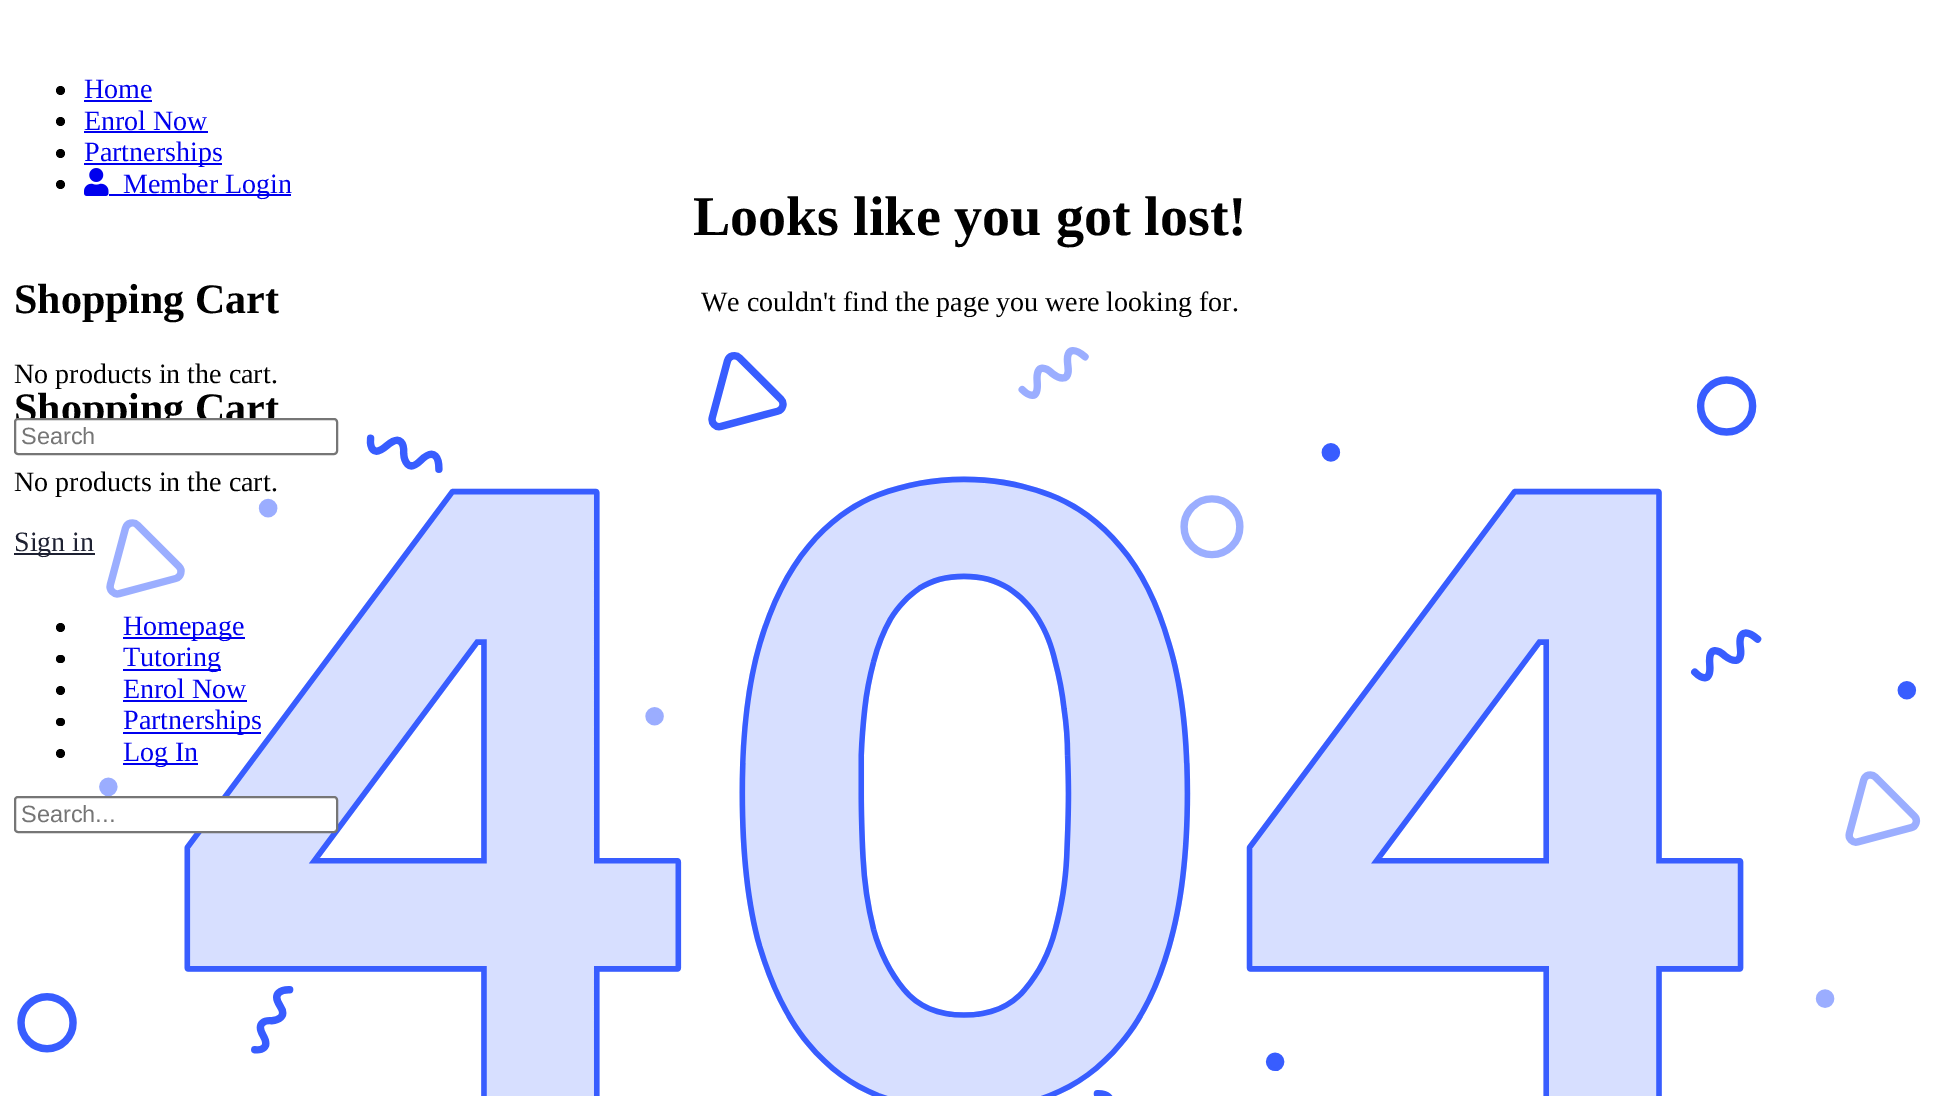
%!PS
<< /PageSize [1938 1096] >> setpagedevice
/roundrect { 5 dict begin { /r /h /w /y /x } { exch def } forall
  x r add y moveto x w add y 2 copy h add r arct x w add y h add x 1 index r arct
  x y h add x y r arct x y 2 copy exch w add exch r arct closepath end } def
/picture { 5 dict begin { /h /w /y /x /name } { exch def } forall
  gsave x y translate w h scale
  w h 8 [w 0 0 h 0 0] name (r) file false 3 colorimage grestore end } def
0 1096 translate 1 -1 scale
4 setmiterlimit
1 setgray
0 0 1938 1096 rectfill
0 setgray
newpath 60.5 90.5 4.5 0 360 arc closepath fill
/LiberationSerif-Regular [28 0 0 -28 0 0] selectfont
0 0 0.933 setrgbcolor
84 98 moveto (Home) show
84 100 68 2 rectfill
0 setgray
newpath 60.5 121.5 4.5 0 360 arc closepath fill
0 0 0.933 setrgbcolor
84 130 moveto (Enrol Now) show
84 131 124 2 rectfill
0 setgray
newpath 60.5 153.5 4.5 0 360 arc closepath fill
0 0 0.933 setrgbcolor
84 163 138 2 rectfill
84 161 moveto (Partnerships) show
0 setgray
newpath 60.5 184.5 4.5 0 360 arc closepath fill
(img1.rgb) 84 168 25 28 picture
0 0 0.933 setrgbcolor
109 194 182 2 rectfill
123 193 moveto (Member Login) show
(img2.rgb) 17 347 1904 749 picture
/LiberationSerif-Bold [42 0 0 -42 0 0] selectfont
0 setgray
14 422 moveto (Shopping Cart) show
/LiberationSerif-Regular [28 0 0 -28 0 0] selectfont
14 491 moveto (No products in the cart.) show
0.118 0.129 0.196 setrgbcolor
14 553 81 2 rectfill
14 551 moveto (Sign in) show
/LiberationSerif-Bold [42 0 0 -42 0 0] selectfont
0 setgray
14 313 moveto (Shopping Cart) show
/LiberationSerif-Regular [28 0 0 -28 0 0] selectfont
14 383 moveto (No products in the cart.) show
1 setgray
15 419 322 35 3 roundrect gsave fill grestore
0.463 setgray
2 setlinewidth
stroke
/LiberationSans-Regular [23.5 0 0 -23.5 0 0] selectfont
0.459 setgray
21 444 moveto (Search) show
0 setgray
newpath 60.5 627.5 4.5 0 360 arc closepath fill
0 0 0.933 setrgbcolor
123 637 122 2 rectfill
/LiberationSerif-Regular [28 0 0 -28 0 0] selectfont
123 635 moveto (Homepage) show
0 setgray
56 655 9 8 4 roundrect fill
0 0 0.933 setrgbcolor
123 669 98 2 rectfill
123 666 moveto (Tutoring) show
0 setgray
newpath 60.5 690.5 4.5 0 360 arc closepath fill
0 0 0.933 setrgbcolor
123 698 moveto (Enrol Now) show
123 700 124 2 rectfill
0 setgray
56 718 9 8 4 roundrect fill
0 0 0.933 setrgbcolor
123 732 138 2 rectfill
123 729 moveto (Partnerships) show
0 setgray
newpath 60.5 753.5 4.5 0 360 arc closepath fill
0 0 0.933 setrgbcolor
123 763 75 2 rectfill
123 761 moveto (Log In) show
1 setgray
15 797 322 35 3 roundrect gsave fill grestore
0.463 setgray
stroke
/LiberationSans-Regular [23.5 0 0 -23.5 0 0] selectfont
0.459 setgray
21 822 moveto (Search...) show
/LiberationSerif-Bold [56 0 0 -56 0 0] selectfont
0 setgray
693 235 moveto (Looks like you got lost!) show
/LiberationSerif-Regular [28 0 0 -28 0 0] selectfont
701 311 moveto (We couldn't find the page you were looking for.) show
showpage
